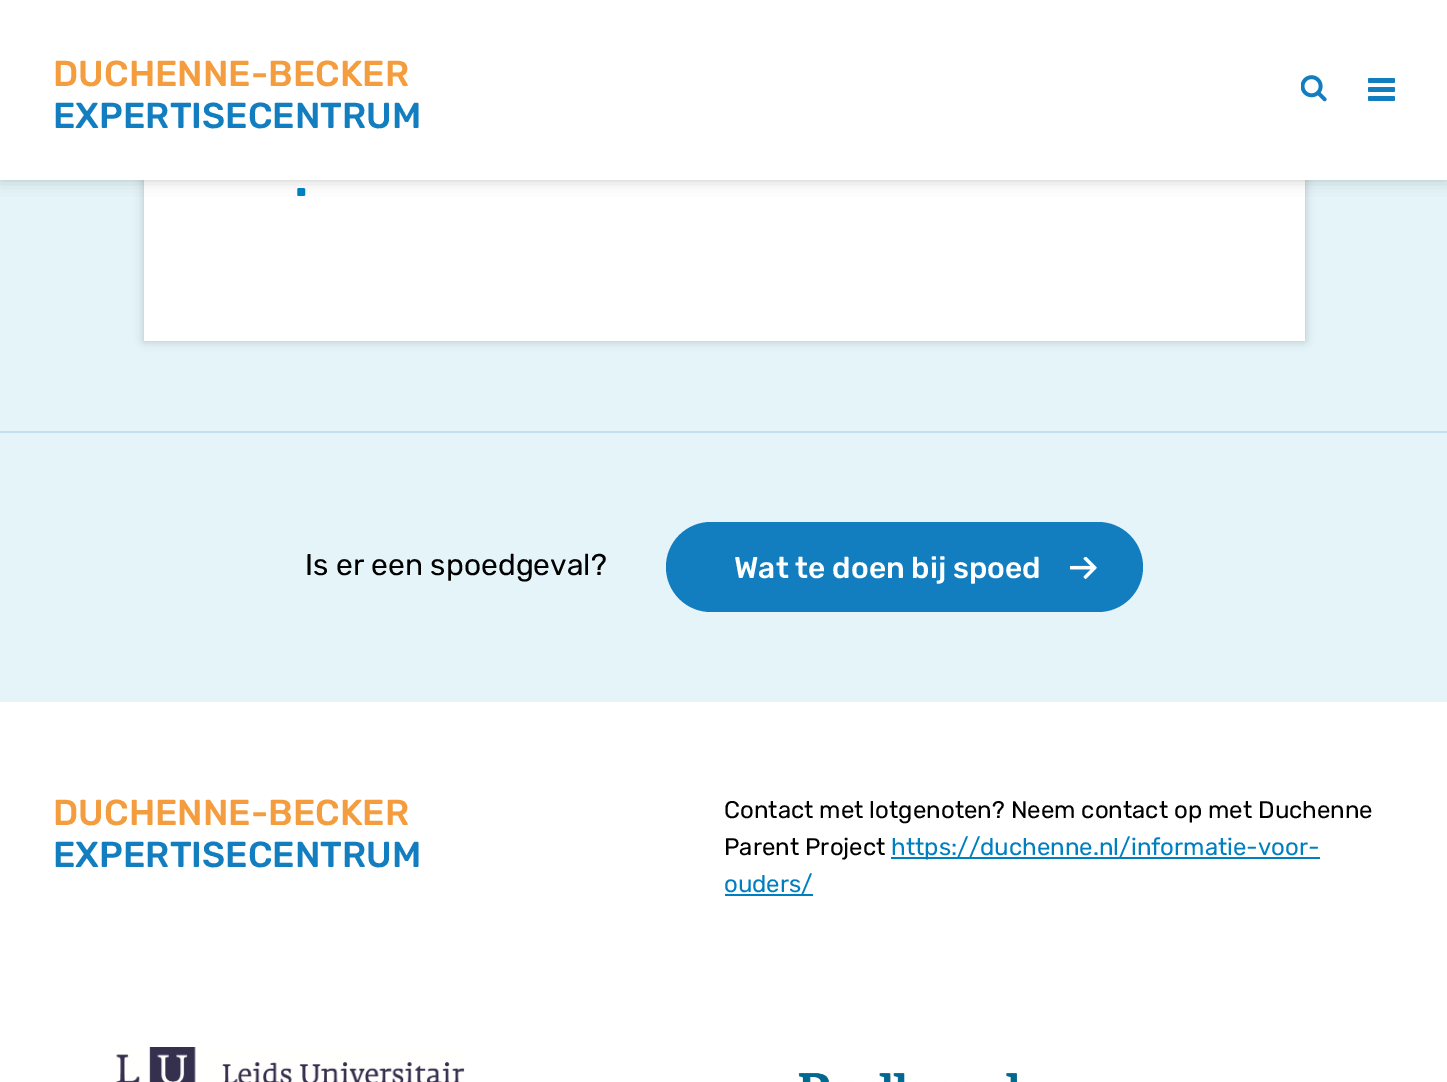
%!PS
<< /PageSize [1447 1082] /PageUsesTransparency true >> setpagedevice
/alpha { dup .setfillconstantalpha .setstrokeconstantalpha } def
/roundrect { 5 dict begin { /r /h /w /y /x } { exch def } forall
  x r add y moveto x w add y 2 copy h add r arct x w add y h add x 1 index r arct
  x y h add x y r arct x y 2 copy exch w add exch r arct closepath end } def
/shadow { 12 dict begin { /a /b /q /h /w /y /x } { exch def } forall gsave /was 0 def
  9 -2 -9 { dup b mul 4 div /e exch def 1 sub .425 mul 2.718 exch exp 1 add a .99 .min exch div /now exch def
    1 1 now sub 1 was sub div sub alpha /was now def
    w h .min e 2 mul add 0 gt { x e sub y e sub w e 2 mul add h e 2 mul add
      q e add b .6 mul add w h .min 2 div e add .min 0 .max roundrect fill } if } for grestore end } def
/picture { 5 dict begin { /h /w /y /x /name } { exch def } forall
  gsave x y translate w h scale
  w h 8 [w 0 0 h 0 0] name (r) file false 3 colorimage grestore end } def
0 .pushpdf14devicefilter
0 1082 translate 1 -1 scale
4 setmiterlimit
0.894 0.957 0.973 setrgbcolor
0 0 1447 1082 rectfill
0 setgray
144 15 1161 326 0 4.5 0.2 shadow
1 setgray
144 180 1161 161 rectfill
0 setgray
0 0 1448 180 0 7.5 0.2 shadow
1 setgray
0 0 1447 180 rectfill
/Rubik-Medium [36 0 0 -36 0 0] selectfont
0.957 0.616 0.243 setrgbcolor
53 86 moveto (DUCHENNE-BECKER) show
0.071 0.494 0.749 setrgbcolor
53 128 moveto (EXPERTISECENTRUM) show
1368 78 27 5 1.5 roundrect fill
1368 87 27 5 1.5 roundrect fill
1368 96 27 5 1.5 roundrect fill
(img1.rgb) 1301 75 26 27 picture
/Rubik-Medium [54 0 0 -54 0 0] selectfont
0 0.498 0.753 setrgbcolor
294 196 moveto (.) show
0.769 0.875 0.941 setrgbcolor
0 431 1447 2 rectfill
/Rubik-Regular [30 0 0 -30 0 0] selectfont
0 setgray
305 575 moveto (Is er een spoedgeval?) show
0.071 0.494 0.749 setrgbcolor
666 522 477 90 45 roundrect fill
/Rubik-Medium [30 0 0 -30 0 0] selectfont
1 setgray
734 578 moveto (Wat te doen bij spoed) show
(img2.rgb) 1070 557 27 22 picture
0 702 1447 380 rectfill
/Rubik-Medium [36 0 0 -36 0 0] selectfont
0.957 0.616 0.243 setrgbcolor
53 825 moveto (DUCHENNE-BECKER) show
0.071 0.494 0.749 setrgbcolor
53 867 moveto (EXPERTISECENTRUM) show
/Rubik-Regular [24 0 0 -24 0 0] selectfont
0 setgray
724 818 moveto (Contact met lotgenoten? Neem contact op met Duchenne) show
724 855 moveto (Parent Project) show
0 0.498 0.753 setrgbcolor
891 857 429 2 rectfill
891 855 moveto (https://duchenne.nl/informatie-voor-) show
724 892 moveto (ouders/) show
725 894 88 2 rectfill
(img3.rgb) 116 1047 349 35 picture
(img4.rgb) 798 1073 219 9 picture
.poppdf14devicefilter showpage
